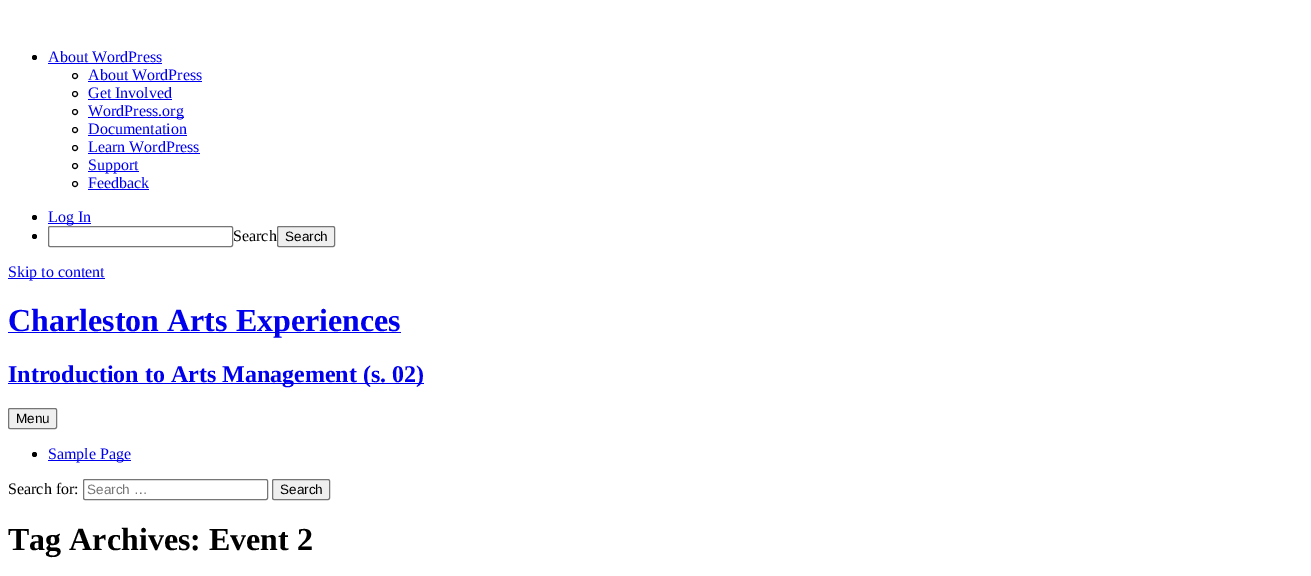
%!PS
<< /PageSize [1311 576] >> setpagedevice
/roundrect { 5 dict begin { /r /h /w /y /x } { exch def } forall
  x r add y moveto x w add y 2 copy h add r arct x w add y h add x 1 index r arct
  x y h add x y r arct x y 2 copy exch w add exch r arct closepath end } def
0 576 translate 1 -1 scale
4 setmiterlimit
1 setgray
0 0 1311 576 rectfill
0 setgray
newpath 34.5 57.5 2.5 0 360 arc closepath fill
/LiberationSerif-Regular [16 0 0 -16 0 0] selectfont
0 0 0.933 setrgbcolor
48 62 moveto (About WordPress) show
48 63 114 1 rectfill
0 setgray
newpath 75 76 2.5 0 360 arc closepath stroke
0 0 0.933 setrgbcolor
88 80 moveto (About WordPress) show
88 81 114 1 rectfill
0 setgray
newpath 75 94 2.5 0 360 arc closepath stroke
0 0 0.933 setrgbcolor
88 98 moveto (Get Involved) show
88 99 84 1 rectfill
0 setgray
newpath 75 112 2.5 0 360 arc closepath stroke
0 0 0.933 setrgbcolor
88 117 96 1 rectfill
88 116 moveto (WordPress.org) show
0 setgray
newpath 75 130 2.5 0 360 arc closepath stroke
0 0 0.933 setrgbcolor
88 134 moveto (Documentation) show
88 135 99 1 rectfill
0 setgray
newpath 75 148 2.5 0 360 arc closepath stroke
0 0 0.933 setrgbcolor
88 152 moveto (Learn WordPress) show
88 153 112 1 rectfill
0 setgray
newpath 75 166 2.5 0 360 arc closepath stroke
0 0 0.933 setrgbcolor
88 171 51 1 rectfill
88 170 moveto (Support) show
0 setgray
newpath 75 184 2.5 0 360 arc closepath stroke
0 0 0.933 setrgbcolor
88 188 moveto (Feedback) show
88 189 61 1 rectfill
0 setgray
newpath 34.5 217.5 2.5 0 360 arc closepath fill
0 0 0.933 setrgbcolor
48 223 43 1 rectfill
48 222 moveto (Log In) show
0 setgray
newpath 34.5 236.5 2.5 0 360 arc closepath fill
0.463 setgray
48.5 226.5 184 20 1.5 roundrect stroke
0 setgray
233 241 moveto (Search) show
0.937 setgray
277.5 226.5 57 20 1.5 roundrect gsave fill grestore
0.463 setgray
stroke
/LiberationSans-Regular [13.5 0 0 -13.5 0 0] selectfont
0 setgray
285 241 moveto (Search) show
0 0 0.933 setrgbcolor
8 278 97 1 rectfill
/LiberationSerif-Regular [16 0 0 -16 0 0] selectfont
8 277 moveto (Skip to content) show
8 332 393 1 rectfill
/LiberationSerif-Bold [32 0 0 -32 0 0] selectfont
8 331 moveto (Charleston Arts Experiences) show
8 383 416 1 rectfill
/LiberationSerif-Bold [24 0 0 -24 0 0] selectfont
8 382 moveto (Introduction to Arts Management \(s. 02\)) show
0.937 setgray
8.5 408.5 48 20 1.5 roundrect gsave fill grestore
0.463 setgray
stroke
/LiberationSans-Regular [13.5 0 0 -13.5 0 0] selectfont
0 setgray
16 423 moveto (Menu) show
newpath 34.5 454.5 2.5 0 360 arc closepath fill
0 0 0.933 setrgbcolor
48 460 83 1 rectfill
/LiberationSerif-Regular [16 0 0 -16 0 0] selectfont
48 459 moveto (Sample Page) show
0 setgray
8 494 moveto (Search for:) show
0.463 setgray
83.5 479.5 184 20 1.5 roundrect stroke
/LiberationSans-Regular [13.5 0 0 -13.5 0 0] selectfont
0.459 setgray
87 494 moveto (Search …) show
0.937 setgray
272.5 479.5 57 20 1.5 roundrect gsave fill grestore
0.463 setgray
stroke
0 setgray
280 494 moveto (Search) show
/LiberationSerif-Bold [32 0 0 -32 0 0] selectfont
8 550 moveto (Tag Archives: Event 2) show
showpage
